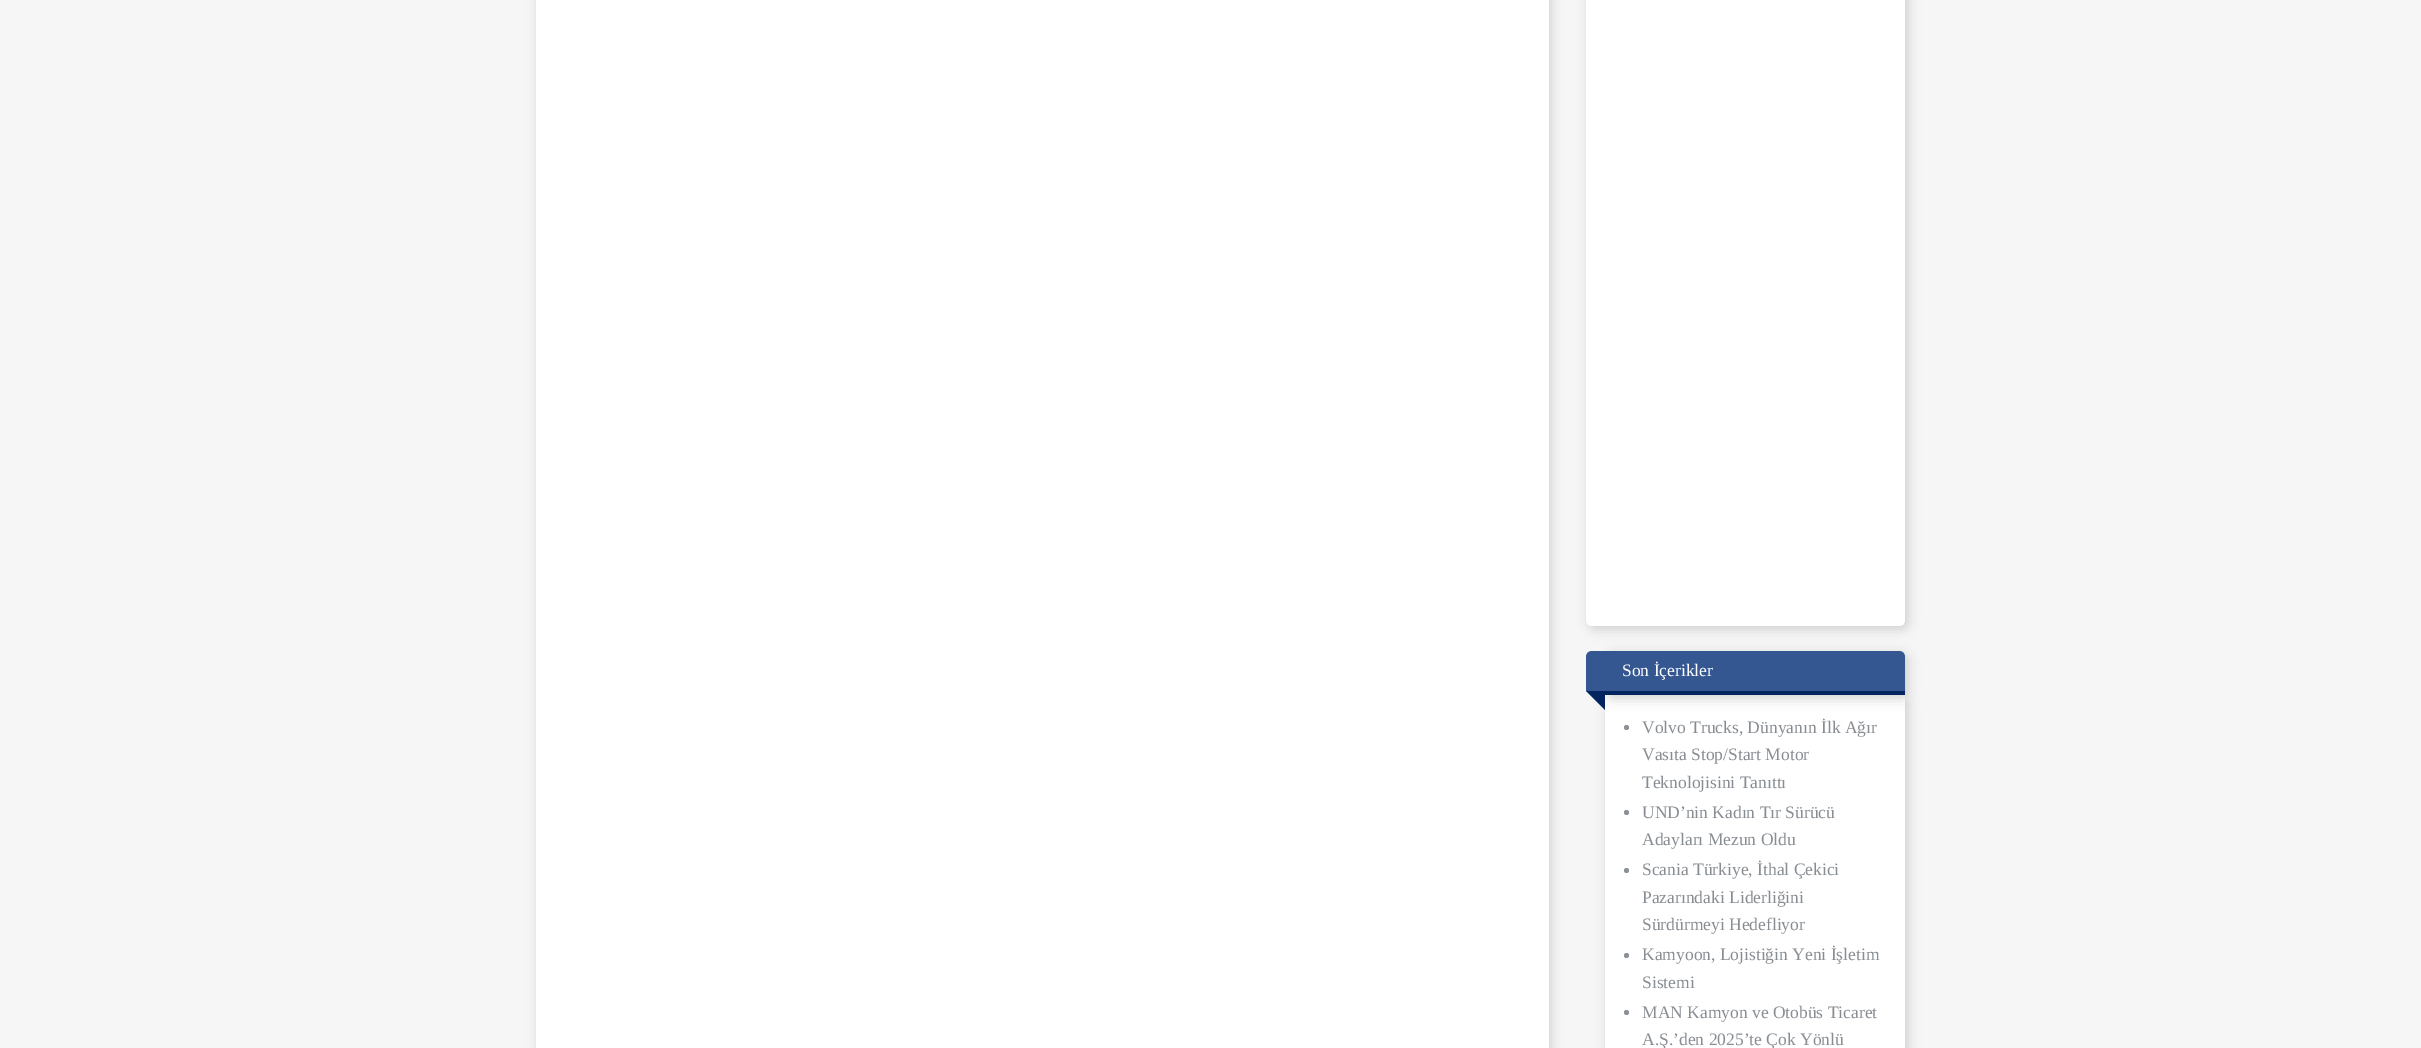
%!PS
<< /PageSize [2421 1048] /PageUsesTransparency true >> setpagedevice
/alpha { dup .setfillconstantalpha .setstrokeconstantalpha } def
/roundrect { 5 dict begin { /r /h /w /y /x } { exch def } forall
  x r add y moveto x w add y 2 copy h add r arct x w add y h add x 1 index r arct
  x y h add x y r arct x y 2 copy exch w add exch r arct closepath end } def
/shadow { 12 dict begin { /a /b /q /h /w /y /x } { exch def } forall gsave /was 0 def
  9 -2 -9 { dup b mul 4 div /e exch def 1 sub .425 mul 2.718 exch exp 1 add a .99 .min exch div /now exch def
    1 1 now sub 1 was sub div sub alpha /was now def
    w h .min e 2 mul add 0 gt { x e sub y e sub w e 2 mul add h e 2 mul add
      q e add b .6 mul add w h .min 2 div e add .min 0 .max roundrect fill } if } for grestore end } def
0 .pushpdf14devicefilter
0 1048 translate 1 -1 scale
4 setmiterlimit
0.965 setgray
0 0 2421 1048 rectfill
0.808 setgray
539 -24 1012 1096 6 6 1 shadow
1 setgray
536 0 1013 1048 rectfill
0.808 setgray
1589 -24 319 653 6 6 1 shadow
1 setgray
newpath 1586 -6 moveto 1905 -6 lineto 1905 620 lineto 1905 623.5 1902.5 626 1899 626 curveto 1592 626 lineto 1588.5 626 1586 623.5 1586 620 curveto closepath fill
0.808 setgray
1608 698 300 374 6 6 1 shadow
1 setgray
1605 695 300 353 rectfill
0.808 setgray
1608 654 300 44 6 6 1 shadow
0.204 0.341 0.573 setrgbcolor
newpath 1605 651 moveto 1899 651 lineto 1902.5 651 1905 653.5 1905 657 curveto 1905 695 lineto 1605 695 lineto closepath fill
0.008 0.145 0.376 setrgbcolor
1605 691 300 4 rectfill
0.204 0.341 0.573 setrgbcolor
newpath 1592 651 moveto 1605 651 lineto 1605 691 lineto 1586 691 lineto 1586 657 lineto 1586 653.5 1588.5 651 1592 651 curveto closepath fill
/LiberationSerif-Regular [17.5 0 0 -17.5 0 0] selectfont
1 setgray
1622 676 moveto (Son İçerikler) show
0.008 0.145 0.376 setrgbcolor
newpath 1586 691 moveto 1605 691 lineto 1605 710 lineto closepath fill
0.545 0.569 0.588 setrgbcolor
newpath 1626.5 727.5 2.5 0 360 arc closepath fill
0.529 0.553 0.573 setrgbcolor
1642 733 moveto (Volvo Trucks, Dünyanın İlk Ağır) show
1642 760 moveto (Vasıta Stop/Start Motor) show
1642 788 moveto (Teknolojisini Tanıttı) show
0.545 0.569 0.588 setrgbcolor
newpath 1626.5 812.5 2.5 0 360 arc closepath fill
0.529 0.553 0.573 setrgbcolor
1642 818 moveto (UND’nin Kadın Tır Sürücü) show
1642 845 moveto (Adayları Mezun Oldu) show
0.545 0.569 0.588 setrgbcolor
newpath 1626.5 870.5 2.5 0 360 arc closepath fill
0.529 0.553 0.573 setrgbcolor
1642 875 moveto (Scania Türkiye, İthal Çekici) show
1642 903 moveto (Pazarındaki Liderliğini) show
1642 930 moveto (Sürdürmeyi Hedefliyor) show
0.545 0.569 0.588 setrgbcolor
newpath 1626.5 955.5 2.5 0 360 arc closepath fill
0.529 0.553 0.573 setrgbcolor
1642 960 moveto (Kamyoon, Lojistiğin Yeni İşletim) show
1642 988 moveto (Sistemi) show
0.545 0.569 0.588 setrgbcolor
newpath 1626.5 1012.5 2.5 0 360 arc closepath fill
0.529 0.553 0.573 setrgbcolor
1642 1018 moveto (MAN Kamyon ve Otobüs Ticaret) show
1642 1045 moveto (A.Ş.’den 2025’te Çok Yönlü) show
.poppdf14devicefilter showpage
